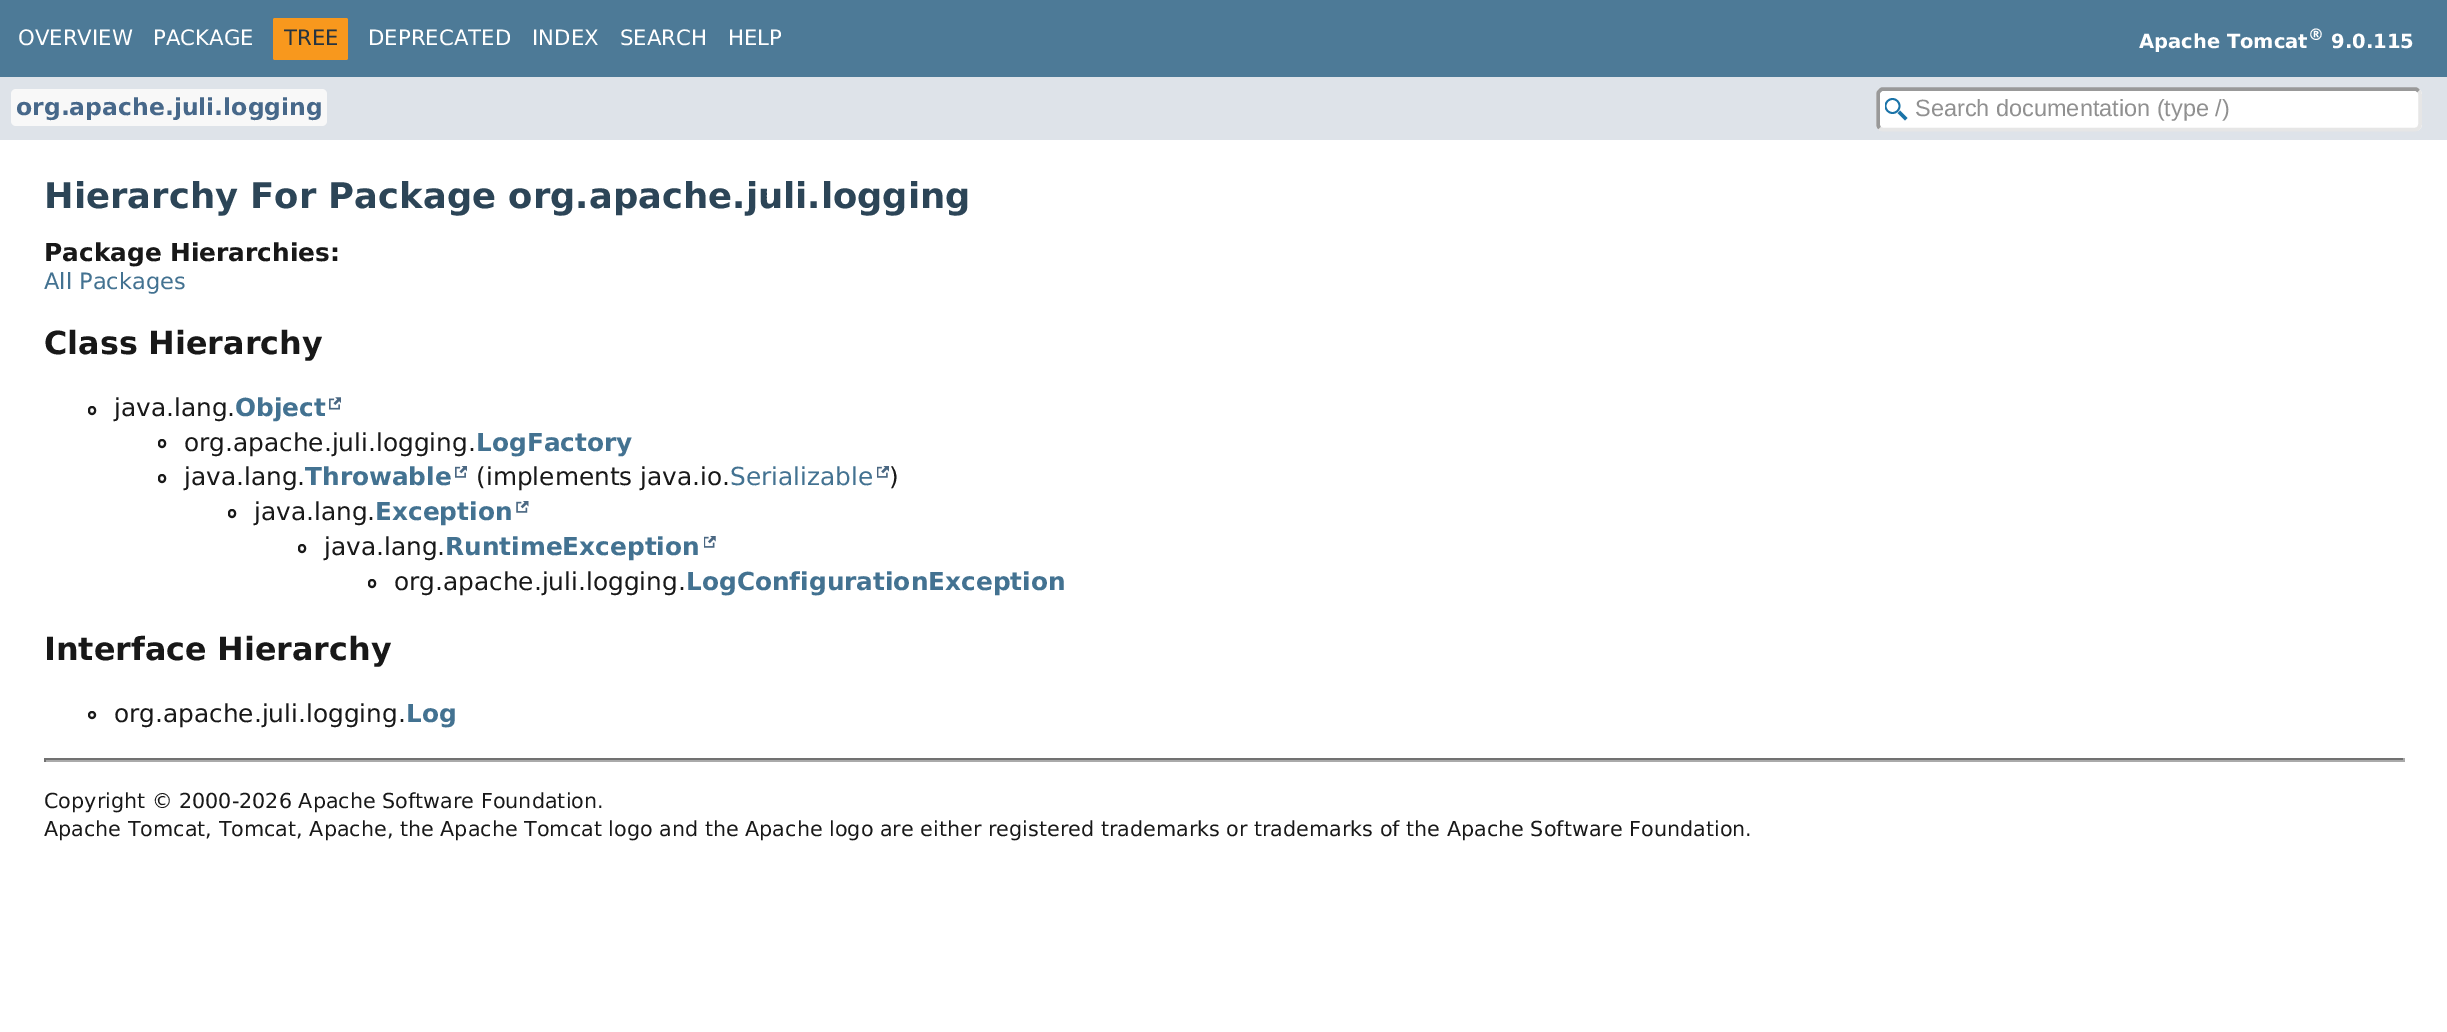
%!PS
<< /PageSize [2447 1032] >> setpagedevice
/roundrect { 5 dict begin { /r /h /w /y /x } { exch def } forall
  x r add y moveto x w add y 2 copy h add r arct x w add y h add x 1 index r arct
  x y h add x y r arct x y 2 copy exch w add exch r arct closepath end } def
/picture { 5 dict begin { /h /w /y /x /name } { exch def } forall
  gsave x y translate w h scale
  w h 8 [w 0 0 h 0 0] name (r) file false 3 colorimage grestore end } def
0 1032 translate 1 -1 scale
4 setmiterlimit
1 setgray
0 0 2447 1032 rectfill
0.302 0.478 0.592 setrgbcolor
0 0 2447 77 rectfill
/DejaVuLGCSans-Regular [21.25 0 0 -21.25 0 0] selectfont
1 setgray
18 45 moveto (OVERVIEW) show
153 45 moveto (PACKAGE) show
0.973 0.596 0.114 setrgbcolor
273 18 75 42 2 roundrect fill
0.145 0.204 0.255 setrgbcolor
284 45 moveto (TREE) show
1 setgray
368 45 moveto (DEPRECATED) show
532 45 moveto (INDEX) show
620 45 moveto (SEARCH) show
728 45 moveto (HELP) show
/DejaVuLGCSans-Bold [19.5 0 0 -19.5 0 0] selectfont
2139 48 moveto (Apache Tomcat) show
/DejaVuLGCSans-Bold [16 0 0 -16 0 0] selectfont
2308 40 moveto (®) show
/DejaVuLGCSans-Bold [19.5 0 0 -19.5 0 0] selectfont
2331 48 moveto (9.0.115) show
0.871 0.89 0.914 setrgbcolor
0 77 2447 63 rectfill
0.973 setgray
11 89 316 37 5 roundrect fill
/DejaVuLGCSans-Bold [23.5 0 0 -23.5 0 0] selectfont
0.278 0.408 0.541 setrgbcolor
16 115 moveto (org.apache.juli.logging) show
1 setgray
1876 88 546 43 7 roundrect fill
0.102 0.451 0.659 setrgbcolor
newpath 1900 110.5 moveto 1899.5 111.5 1898.5 112.5 1897.5 113 curveto 1905 120.5 lineto 1907.5 118 lineto closepath fill
gsave
1885 98 23 23 rectclip
1.8 setlinewidth
newpath 1892.5 106 7 0 360 arc closepath stroke
grestore
0.902 setgray
3.5 setlinewidth
newpath 2418.5 91 moveto 2419.5 92 2420 93 2420 94.5 curveto 2420 124 lineto 2420 125.5 2419.5 127 2418.5 128 curveto 2417.5 129 2416.5 129.5 2415 129.5 curveto 1883 129.5 lineto 1881.5 129.5 1880.5 129 1879.5 128 curveto stroke
0.6 setgray
newpath 1879.5 128 moveto 1878.5 127 1878 125.5 1878 124 curveto 1878 94.5 lineto 1878 93 1878.5 92 1879.5 91 curveto 1880.5 90 1881.5 89 1883 89 curveto 2415 89 lineto 2416.5 89 2417.5 90 2418.5 91 curveto stroke
/LiberationSans-Regular [23.5 0 0 -23.5 0 0] selectfont
0.565 setgray
1915 116 moveto (Search documentation \(type /\)) show
/DejaVuLGCSans-Bold [35.4 0 0 -35.4 0 0] selectfont
0.173 0.271 0.341 setrgbcolor
44 208 moveto (Hierarchy For Package org.apache.juli.logging) show
/DejaVuLGCSans-Bold [24.8 0 0 -24.8 0 0] selectfont
0.094 setgray
44 261 moveto (Package Hierarchies:) show
/DejaVuLGCSans-Regular [22.5 0 0 -22.5 0 0] selectfont
0.263 0.447 0.569 setrgbcolor
44 289 moveto (All Packages) show
/DejaVuLGCSans-Bold [31.75 0 0 -31.75 0 0] selectfont
0.094 setgray
44 354 moveto (Class Hierarchy) show
2 setlinewidth
89 407 6 7 3 roundrect stroke
/DejaVuLGCSans-Regular [24.8 0 0 -24.8 0 0] selectfont
114 416 moveto (java.lang.) show
/DejaVuLGCSans-Bold [24.8 0 0 -24.8 0 0] selectfont
0.263 0.447 0.569 setrgbcolor
235 416 moveto (Object) show
(img1.rgb) 329 397 12 13 picture
0.094 setgray
159 440 6 7 3 roundrect stroke
/DejaVuLGCSans-Regular [24.8 0 0 -24.8 0 0] selectfont
184 451 moveto (org.apache.juli.logging.) show
/DejaVuLGCSans-Bold [24.8 0 0 -24.8 0 0] selectfont
0.263 0.447 0.569 setrgbcolor
476 451 moveto (LogFactory) show
0.094 setgray
159 475 6 7 3 roundrect stroke
/DejaVuLGCSans-Regular [24.8 0 0 -24.8 0 0] selectfont
184 485 moveto (java.lang.) show
/DejaVuLGCSans-Bold [24.8 0 0 -24.8 0 0] selectfont
0.263 0.447 0.569 setrgbcolor
305 485 moveto (Throwable) show
(img2.rgb) 455 466 12 12 picture
/DejaVuLGCSans-Regular [24.8 0 0 -24.8 0 0] selectfont
0.094 setgray
476 485 moveto (\(implements java.io.) show
0.263 0.447 0.569 setrgbcolor
730 485 moveto (Serializable) show
(img3.rgb) 877 466 12 12 picture
0.094 setgray
889 485 moveto (\)) show
229 510 6 7 3 roundrect stroke
254 520 moveto (java.lang.) show
/DejaVuLGCSans-Bold [24.8 0 0 -24.8 0 0] selectfont
0.263 0.447 0.569 setrgbcolor
375 520 moveto (Exception) show
(img4.rgb) 516 501 13 12 picture
0.094 setgray
299 545 6 7 3 roundrect stroke
/DejaVuLGCSans-Regular [24.8 0 0 -24.8 0 0] selectfont
324 555 moveto (java.lang.) show
/DejaVuLGCSans-Bold [24.8 0 0 -24.8 0 0] selectfont
0.263 0.447 0.569 setrgbcolor
445 555 moveto (RuntimeException) show
(img5.rgb) 704 536 12 12 picture
0.094 setgray
369 580 6 7 3 roundrect stroke
/DejaVuLGCSans-Regular [24.8 0 0 -24.8 0 0] selectfont
394 590 moveto (org.apache.juli.logging.) show
/DejaVuLGCSans-Bold [24.8 0 0 -24.8 0 0] selectfont
0.263 0.447 0.569 setrgbcolor
686 590 moveto (LogConfigurationException) show
/DejaVuLGCSans-Bold [31.75 0 0 -31.75 0 0] selectfont
0.094 setgray
44 660 moveto (Interface Hierarchy) show
newpath 92 715 3 0 360 arc closepath stroke
/DejaVuLGCSans-Regular [24.8 0 0 -24.8 0 0] selectfont
114 722 moveto (org.apache.juli.logging.) show
/DejaVuLGCSans-Bold [24.8 0 0 -24.8 0 0] selectfont
0.263 0.447 0.569 setrgbcolor
406 722 moveto (Log) show
0.443 setgray
44 758 2361 2 rectfill
0.667 setgray
2403 758 2 4 rectfill
44 760 2361 2 rectfill
0.443 setgray
44 758 2 4 rectfill
/DejaVuLGCSans-Regular [20.7 0 0 -20.7 0 0] selectfont
0.094 setgray
44 808 moveto (Copyright © 2000-2026 Apache Software Foundation.) show
44 836 moveto (Apache Tomcat, Tomcat, Apache, the Apache Tomcat logo and the Apache logo are either registered trademarks) show
1226 836 moveto (or trademarks of the Apache Software Foundation.) show
showpage
